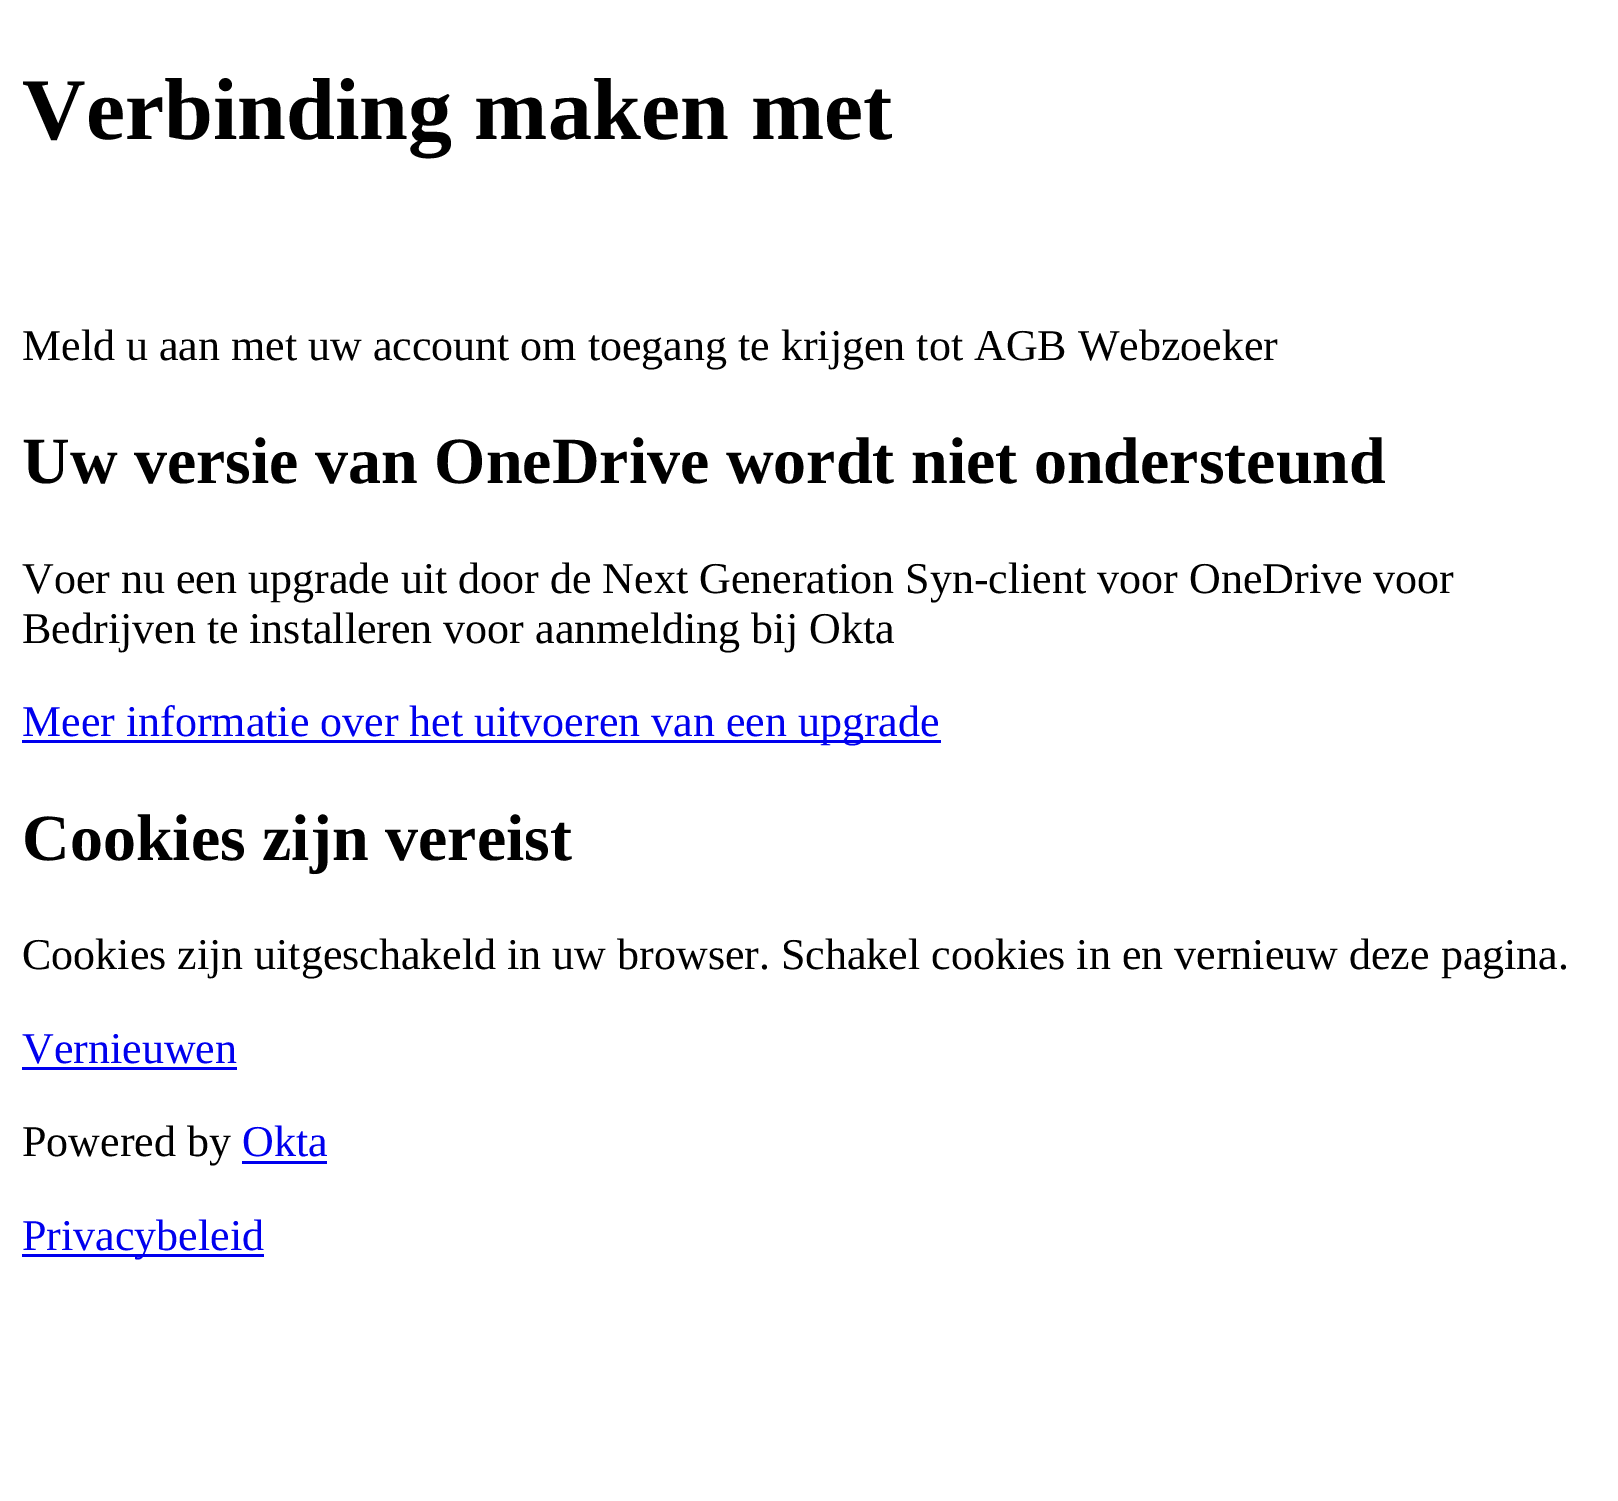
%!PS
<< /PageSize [1618 1501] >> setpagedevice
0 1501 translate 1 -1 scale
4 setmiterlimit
1 setgray
0 0 1618 1501 rectfill
/LiberationSerif-Bold [88 0 0 -88 0 0] selectfont
0 setgray
22 139 moveto (Verbinding maken met) show
/LiberationSerif-Regular [44 0 0 -44 0 0] selectfont
22 360 moveto (Meld u aan met uw account om toegang te krijgen tot AGB Webzoeker) show
/LiberationSerif-Bold [66 0 0 -66 0 0] selectfont
22 483 moveto (Uw versie van OneDrive wordt niet ondersteund) show
/LiberationSerif-Regular [44 0 0 -44 0 0] selectfont
22 593 moveto (Voer nu een upgrade uit door de Next Generation Syn-client voor OneDrive voor) show
22 643 moveto (Bedrijven te installeren voor aanmelding bij Okta) show
0 0 0.933 setrgbcolor
22 740 919 3 rectfill
22 736 moveto (Meer informatie over het uitvoeren van een upgrade) show
/LiberationSerif-Bold [66 0 0 -66 0 0] selectfont
0 setgray
22 860 moveto (Cookies zijn vereist) show
/LiberationSerif-Regular [44 0 0 -44 0 0] selectfont
22 969 moveto (Cookies zijn uitgeschakeld in uw browser. Schakel cookies in en vernieuw deze pagina.) show
0 0 0.933 setrgbcolor
22 1063 moveto (Vernieuwen) show
22 1067 215 3 rectfill
0 setgray
22 1156 moveto (Powered by) show
0 0 0.933 setrgbcolor
242 1156 moveto (Okta) show
242 1161 85 3 rectfill
22 1254 242 3 rectfill
22 1250 moveto (Privacybeleid) show
showpage
